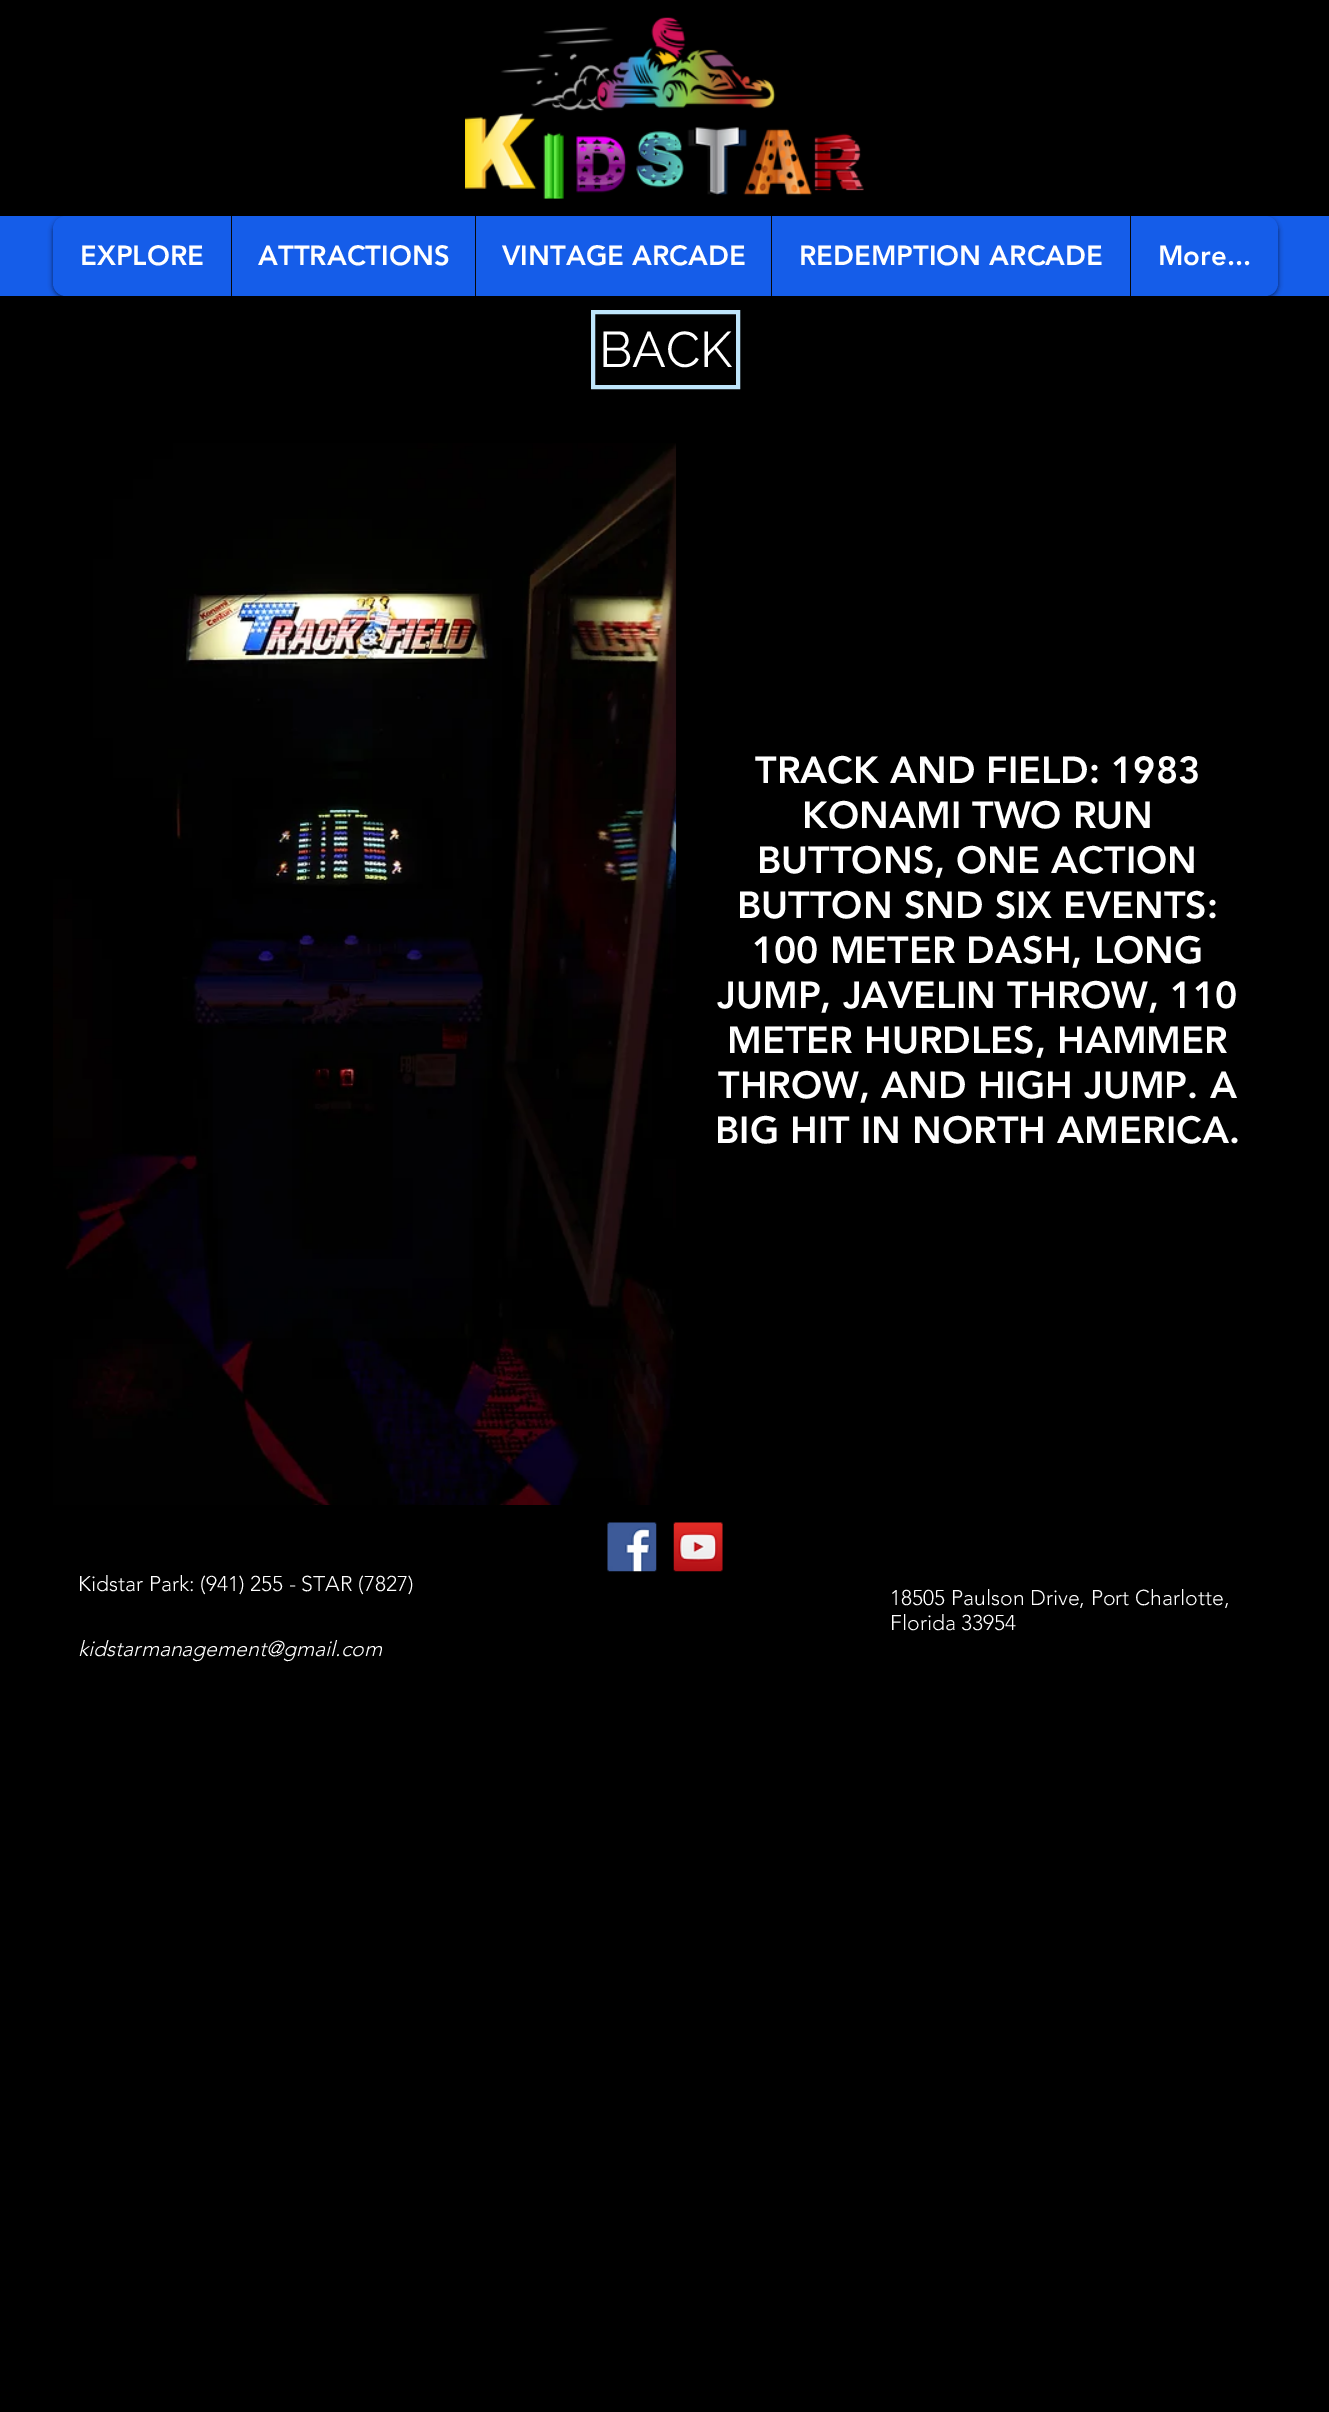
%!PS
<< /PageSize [1329 2412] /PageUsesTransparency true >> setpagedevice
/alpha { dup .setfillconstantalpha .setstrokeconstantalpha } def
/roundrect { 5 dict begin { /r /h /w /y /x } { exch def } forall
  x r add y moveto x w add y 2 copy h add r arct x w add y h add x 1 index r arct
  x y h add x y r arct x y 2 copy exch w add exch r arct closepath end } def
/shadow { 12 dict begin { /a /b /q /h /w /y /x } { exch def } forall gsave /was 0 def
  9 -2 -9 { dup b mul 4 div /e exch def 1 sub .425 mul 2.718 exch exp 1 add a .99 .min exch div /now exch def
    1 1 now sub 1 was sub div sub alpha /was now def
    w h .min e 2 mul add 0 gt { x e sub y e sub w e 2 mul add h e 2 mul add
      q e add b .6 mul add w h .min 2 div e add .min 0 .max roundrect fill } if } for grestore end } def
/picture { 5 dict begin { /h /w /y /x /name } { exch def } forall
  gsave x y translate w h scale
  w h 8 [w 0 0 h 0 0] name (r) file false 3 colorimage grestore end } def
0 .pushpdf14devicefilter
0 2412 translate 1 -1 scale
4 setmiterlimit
0 setgray
0 0 1329 2412 rectfill
(img1.rgb) 465 17 399 182 picture
0.082 0.365 0.914 setrgbcolor
0 216 1329 80 rectfill
0 setgray
53 218 1225 80 13 2.5 0.6 shadow
0.082 0.365 0.914 setrgbcolor
53 216 1225 80 13 roundrect fill
/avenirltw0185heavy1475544-Black [27.5 0 0 -27.5 0 0] selectfont
1 setgray
80 265 moveto (EXPLORE) show
0.031 setgray
231 216 1 80 rectfill
1 setgray
258 265 moveto (ATTRACTIONS) show
0.031 setgray
475 216 1 80 rectfill
1 setgray
502 265 moveto (VINTAGE ARCADE) show
0.031 setgray
771 216 1 80 rectfill
1 setgray
799 265 moveto (REDEMPTION ARCADE) show
0.031 setgray
1130 216 1 80 rectfill
1 setgray
1158 265 moveto (More...) show
0.745 0.898 0.984 setrgbcolor
4 setlinewidth
593 312 145 75 rectstroke
/Raleway-Regular [50 0 0 -50 0 0] selectfont
1 setgray
599 367 moveto (BACK) show
(img2.rgb) 53 443 624 1062 picture
/avenirltw0185heavy1475544-Black [37.5 0 0 -37.5 0 0] selectfont
755 783 moveto (TRACK AND FIELD: 1983) show
802 828 moveto (KONAMI TWO RUN) show
757 873 moveto (BUTTONS, ONE ACTION) show
737 918 moveto (BUTTON SND SIX EVENTS:) show
752 963 moveto (100 METER DASH, LONG) show
717 1008 moveto (JUMP, JAVELIN THROW, 110) show
727 1053 moveto (METER HURDLES, HAMMER) show
718 1098 moveto (THROW, AND HIGH JUMP. A) show
715 1143 moveto (BIG HIT IN NORTH AMERICA.) show
(img3.rgb) 607 1522 50 50 picture
(img4.rgb) 673 1522 50 50 picture
/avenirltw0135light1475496-Light [21.25 0 0 -21.25 0 0] selectfont
78 1591 moveto (Kidstar Park: \(941\) 255 - STAR \(7827\)) show
890 1605 moveto (18505 Paulson Drive, Port Charlotte,) show
890 1630 moveto (Florida 33954) show
/avenirltw0135light1475496-LightItalic [21.25 0 0 -21.25 0 0] selectfont
78 1656 moveto (kidstarmanagement@gmail.com) show
.poppdf14devicefilter showpage
